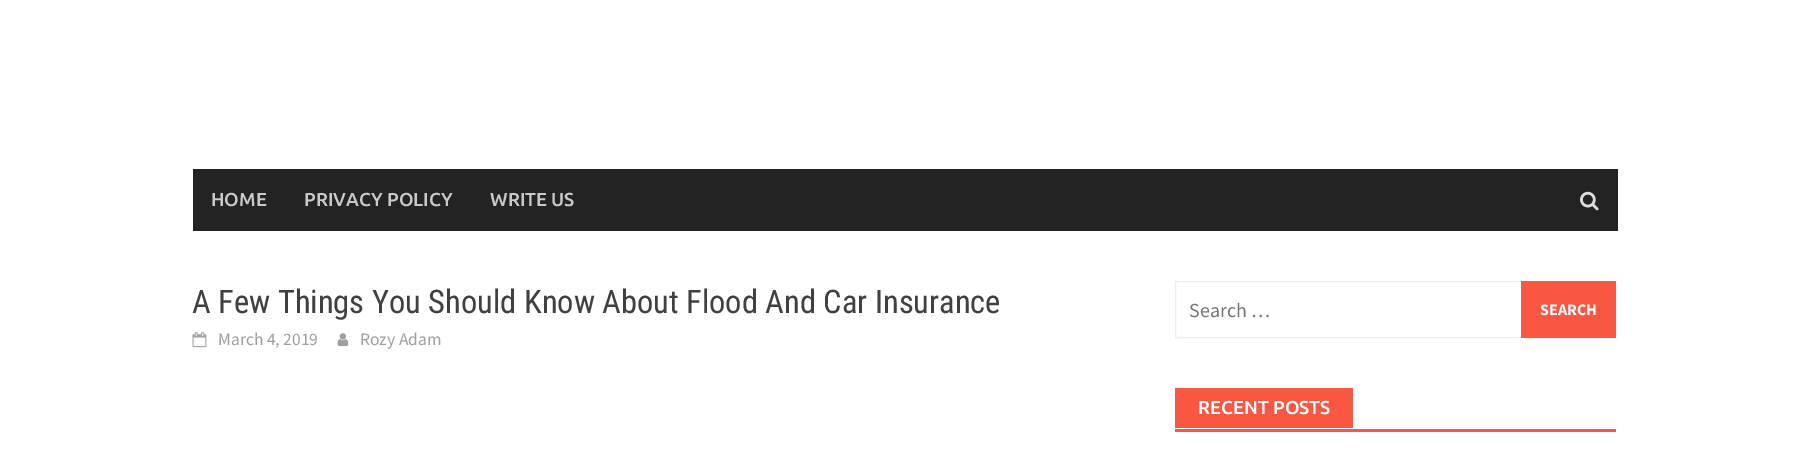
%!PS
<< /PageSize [1808 473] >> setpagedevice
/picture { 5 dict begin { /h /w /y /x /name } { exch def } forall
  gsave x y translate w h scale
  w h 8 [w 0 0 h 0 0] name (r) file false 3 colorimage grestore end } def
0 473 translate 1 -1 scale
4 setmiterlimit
1 setgray
0 0 1808 473 rectfill
0.137 setgray
193 169 1425 62 rectfill
/Ubuntu-Medium [18.75 0 0 -18.75 0 0] selectfont
0.792 setgray
211 206 moveto (HOME) show
304 206 moveto (PRIVACY POLICY) show
490 206 moveto (WRITE US) show
(img1.rgb) 1580 191 19 20 picture
/RobotoCondensed-Regular [32.5 0 0 -32.5 0 0] selectfont
0.251 setgray
192 313 moveto (A Few Things You Should Know About Flood And Car Insurance) show
(img2.rgb) 192 332 15 16 picture
/SourceSansPro-Regular [17.5 0 0 -17.5 0 0] selectfont
0.624 setgray
218 345 moveto (March 4, 2019) show
(img3.rgb) 337 333 12 14 picture
360 345 moveto (Rozy Adam) show
0.933 setgray
1175.5 281.5 440 56 rectstroke
/SourceSansPro-Regular [20 0 0 -20 0 0] selectfont
0.459 setgray
1189 317 moveto (Search …) show
0.98 0.341 0.259 setrgbcolor
1521 281 95 57 rectfill
/SourceSansPro-Bold [16 0 0 -16 0 0] selectfont
1 setgray
1540 315 moveto (SEARCH) show
0.98 0.341 0.259 setrgbcolor
1175 429 441 3 rectfill
1175 388 178 40 rectfill
/Ubuntu-Medium [18.75 0 0 -18.75 0 0] selectfont
1 setgray
1198 414 moveto (RECENT POSTS) show
showpage
